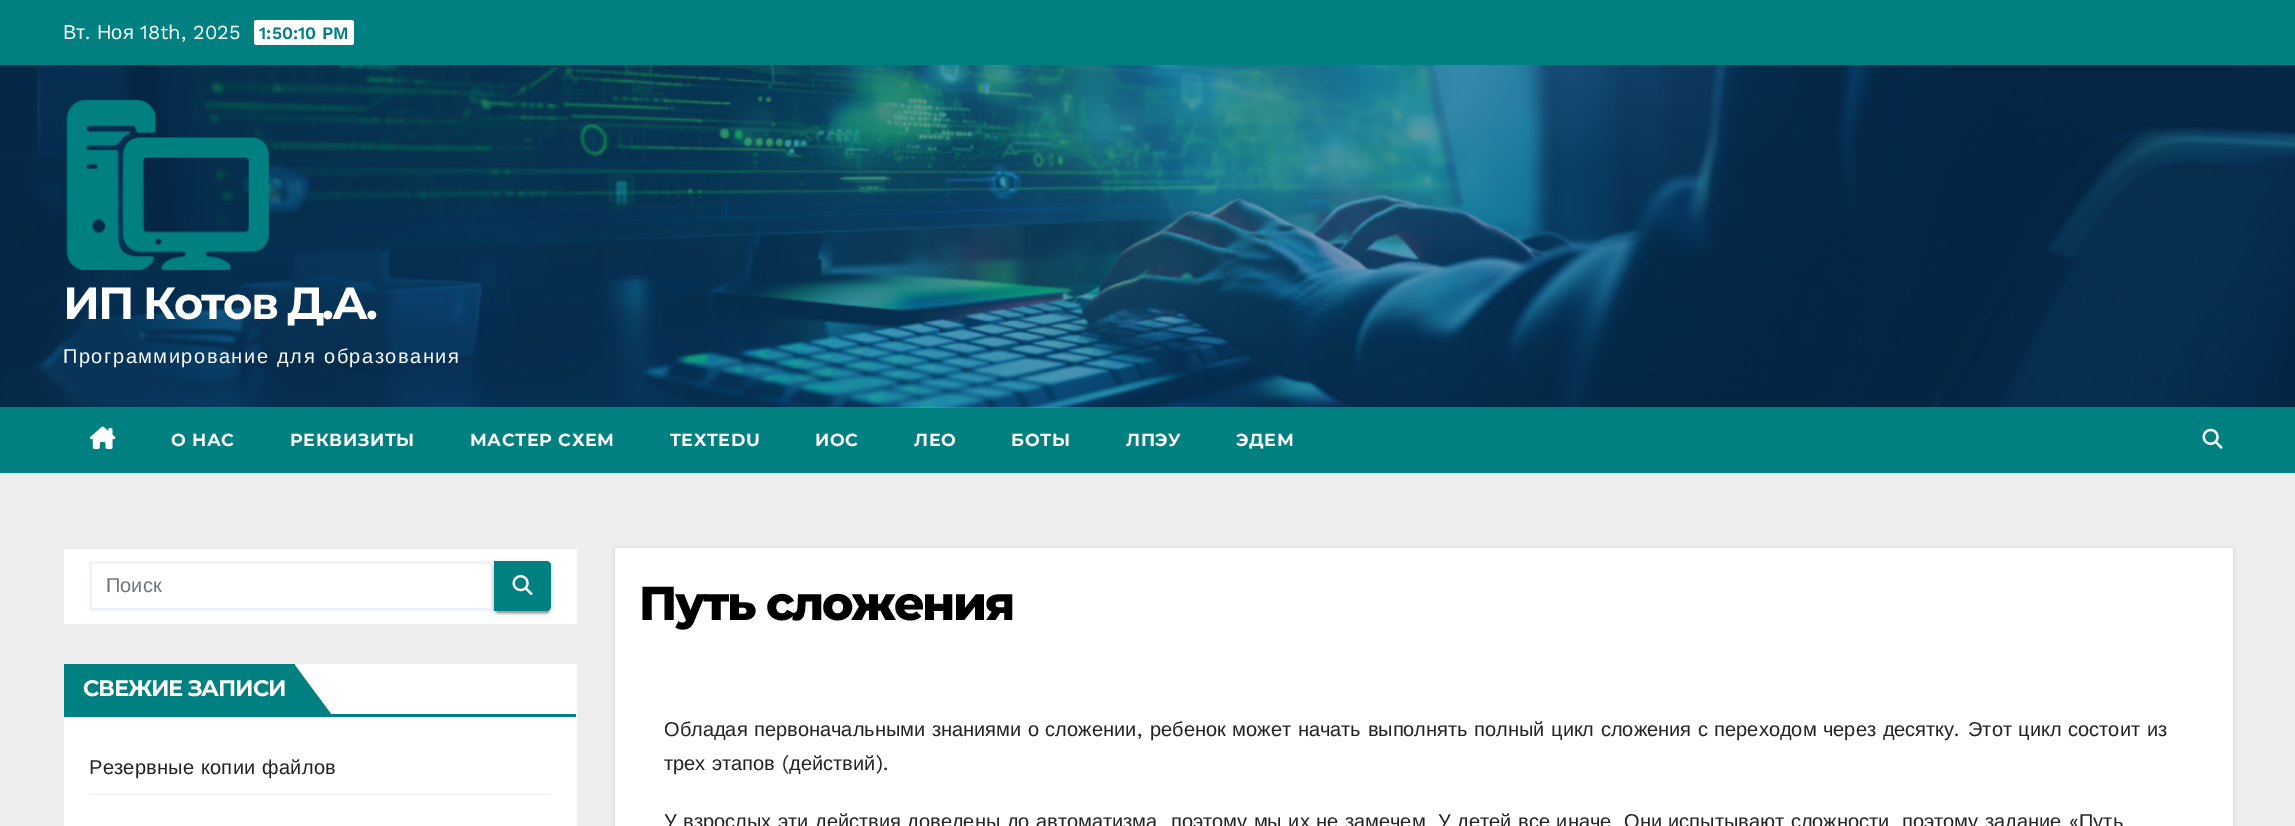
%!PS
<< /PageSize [2295 826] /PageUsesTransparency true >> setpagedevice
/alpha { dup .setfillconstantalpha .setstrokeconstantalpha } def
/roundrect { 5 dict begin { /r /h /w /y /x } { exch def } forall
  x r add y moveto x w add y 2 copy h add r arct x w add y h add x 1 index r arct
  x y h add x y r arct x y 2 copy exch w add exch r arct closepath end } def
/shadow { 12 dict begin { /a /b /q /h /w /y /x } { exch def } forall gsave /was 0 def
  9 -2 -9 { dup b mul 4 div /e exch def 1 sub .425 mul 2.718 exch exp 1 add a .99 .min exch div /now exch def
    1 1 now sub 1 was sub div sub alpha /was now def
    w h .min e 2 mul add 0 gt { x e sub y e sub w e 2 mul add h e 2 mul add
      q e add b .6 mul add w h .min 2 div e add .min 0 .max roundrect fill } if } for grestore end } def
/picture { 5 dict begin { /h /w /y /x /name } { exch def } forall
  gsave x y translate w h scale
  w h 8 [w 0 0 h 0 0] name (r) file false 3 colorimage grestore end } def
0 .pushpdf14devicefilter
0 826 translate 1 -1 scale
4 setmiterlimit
0.933 setgray
0 0 2295 826 rectfill
0.447 0.576 0.69 setrgbcolor
0 407 2295 1 rectfill
0 0.502 0.502 setrgbcolor
0 0 2295 65 rectfill
/LiberationSans-Regular [20 0 0 -20 0 0] selectfont
1 setgray
63 39 moveto (Вт) show
/WorkSans-Regular [20 0 0 -20 0 0] selectfont
85 39 moveto (.) show
/LiberationSans-Regular [20 0 0 -20 0 0] selectfont
97 39 moveto (Ноя) show
/WorkSans-Regular [20 0 0 -20 0 0] selectfont
140 39 moveto (18th, 2025) show
254 20 100 25 2.5 roundrect fill
/WorkSans-SemiBold [17.5 0 0 -17.5 0 0] selectfont
0 0.502 0.502 setrgbcolor
259 39 moveto (1:50:10 PM) show
(img1.rgb) 0 65 2295 343 picture
(img2.rgb) 66 99 203 172 picture
/Montserrat-Bold [45 0 0 -45 0 0] selectfont
1 setgray
63 319 moveto -2.1 0 (ИП Котов Д.А.) ashow
/LiberationSans-Regular [20 0 0 -20 0 0] selectfont
63 363 moveto 1 0 32 1.5 0 (Программирование для образования) awidthshow
0 0.502 0.502 setrgbcolor
0 408 2295 65 rectfill
(img3.rgb) 90 426 26 24 picture
/Montserrat-Bold [17.5 0 0 -17.5 0 0] selectfont
1 setgray
171 446 moveto 0.6 0 (О НАС) ashow
290 446 moveto 0.6 0 (РЕКВИЗИТЫ) ashow
470 446 moveto 0.6 0 (МАСТЕР СХЕМ) ashow
670 446 moveto 0.6 0 (TEXTEDU) ashow
815 446 moveto 0.6 0 (ИОС) ashow
914 446 moveto 0.6 0 (ЛЕО) ashow
1011 446 moveto 0.6 0 (БОТЫ) ashow
1126 446 moveto 0.6 0 (ЛПЭУ) ashow
1236 446 moveto 0.6 0 (ЭДЕМ) ashow
(img4.rgb) 2202 428 21 21 picture
64 549 513 75 rectfill
0.933 0.953 0.984 setrgbcolor
3 setlinewidth
90.5 562.5 402 47 rectstroke
/LiberationSans-Regular [20 0 0 -20 0 0] selectfont
0.424 0.459 0.49 setrgbcolor
106 592 moveto (Поиск) show
0 setgray
494 563 57 50 5 3 0.12 shadow
496 568 53 45 2.5 0.5 0.2 shadow
494 564 57 50 5 1 0.14 shadow
0 0.502 0.502 setrgbcolor
newpath 494 561 moveto 546 561 lineto 549 561 551 563 551 566 curveto 551 606 lineto 551 609 549 611 546 611 curveto 494 611 lineto closepath fill
(img5.rgb) 512 575 21 20 picture
1 setgray
64 664 513 162 rectfill
0 0.502 0.502 setrgbcolor
64 714 512 3 rectfill
64 664 231 50 rectfill
/Montserrat-Bold [22.5 0 0 -22.5 0 0] selectfont
1 setgray
83 696 moveto -1.1 0 (СВЕЖИЕ ЗАПИСИ) ashow
0 0.502 0.502 setrgbcolor
newpath 294 714 moveto 294 664 lineto 331 714 lineto closepath fill
0.933 setgray
89 794 462 1 rectfill
/LiberationSans-Regular [20 0 0 -20 0 0] selectfont
0.133 setgray
89 774 moveto 1 0 32 0.25 0 (Резервные копии файлов) awidthshow
0 setgray
615 549 1618 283 0 2 0.15 shadow
1 setgray
615 548 1618 278 rectfill
/Montserrat-ExtraBold [47.5 0 0 -47.5 0 0] selectfont
0 setgray
639 620 moveto -2.4 0 (Путь сложения) ashow
/LiberationSans-Regular [20 0 0 -20 0 0] selectfont
0.133 setgray
664 736 moveto 1.1 0 32 (Обладая первоначальными знаниями о сложении) widthshow
/WorkSans-Regular [20 0 0 -20 0 0] selectfont
1137 736 moveto (,) show
/LiberationSans-Regular [20 0 0 -20 0 0] selectfont
1150 736 moveto 1.1 0 32 (ребенок может начать выполнять полный цикл сложения с переходом через десятку) widthshow
/WorkSans-Regular [20 0 0 -20 0 0] selectfont
1954 736 moveto (.) show
/LiberationSans-Regular [20 0 0 -20 0 0] selectfont
1968 736 moveto 1.1 0 32 (Этот цикл состоит из) widthshow
664 770 moveto 1 0 32 (трех этапов) widthshow
/WorkSans-Regular [20 0 0 -20 0 0] selectfont
782 770 moveto (\() show
/LiberationSans-Regular [20 0 0 -20 0 0] selectfont
789 770 moveto (действий) show
/WorkSans-Regular [20 0 0 -20 0 0] selectfont
876 770 moveto (\).) show
/LiberationSans-Regular [20 0 0 -20 0 0] selectfont
664 828 moveto 1 0 32 (У взрослых эти действия доведены до автоматизма) widthshow
1171 828 moveto 1 0 32 (поэтому мы их не замечем) widthshow
1438 828 moveto 1 0 32 (У детей все иначе) widthshow
1624 828 moveto 1 0 32 (Они испытывают сложности) widthshow
1902 828 moveto 1 0 32 (поэтому задание) widthshow
/WorkSans-Regular [20 0 0 -20 0 0] selectfont
2069 828 moveto («) show
/LiberationSans-Regular [20 0 0 -20 0 0] selectfont
2079 828 moveto (Путь) show
.poppdf14devicefilter showpage
